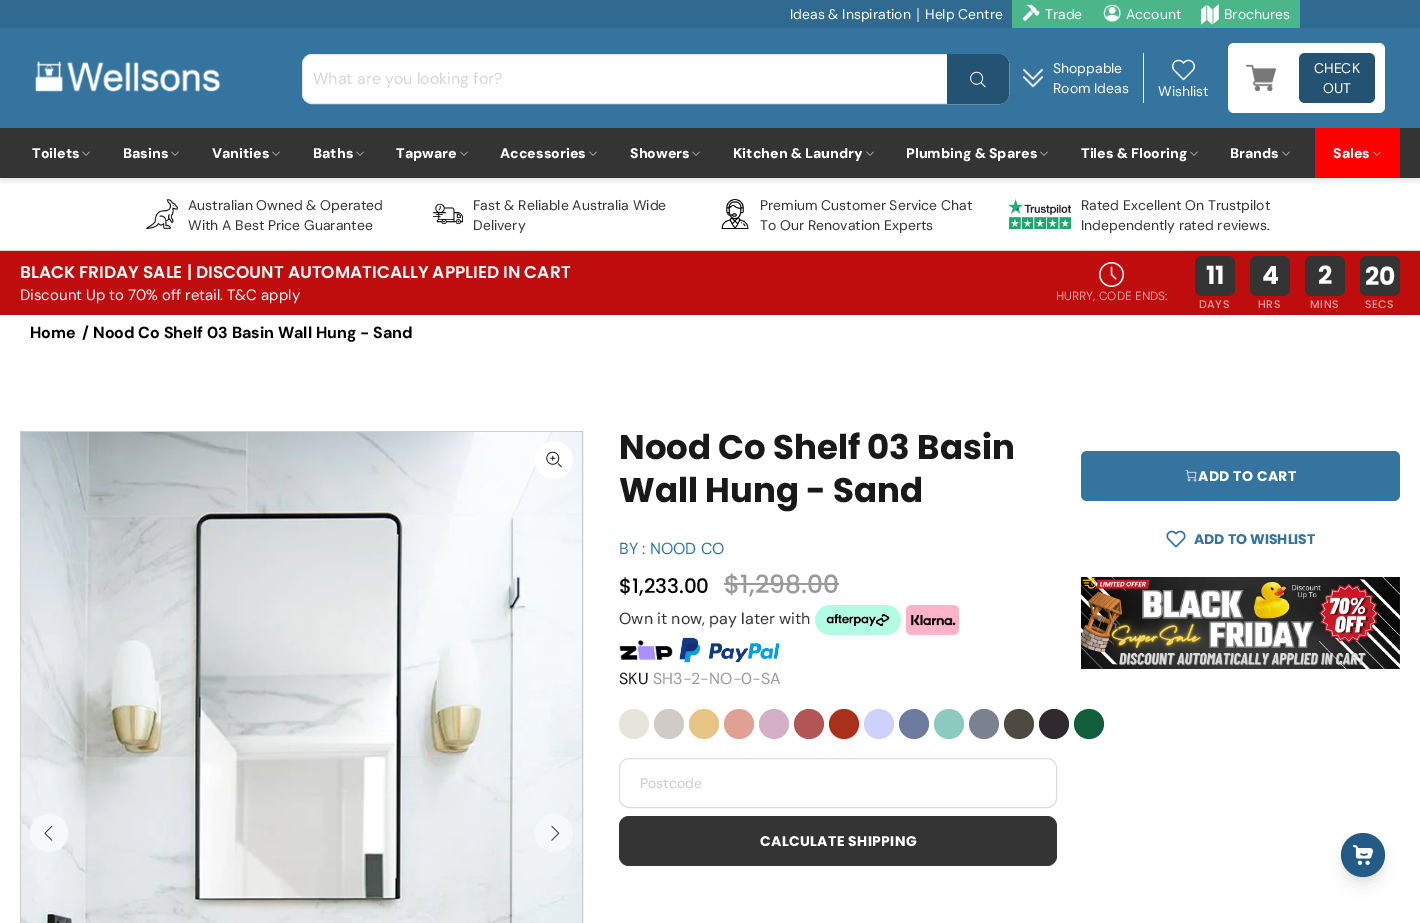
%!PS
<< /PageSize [1420 923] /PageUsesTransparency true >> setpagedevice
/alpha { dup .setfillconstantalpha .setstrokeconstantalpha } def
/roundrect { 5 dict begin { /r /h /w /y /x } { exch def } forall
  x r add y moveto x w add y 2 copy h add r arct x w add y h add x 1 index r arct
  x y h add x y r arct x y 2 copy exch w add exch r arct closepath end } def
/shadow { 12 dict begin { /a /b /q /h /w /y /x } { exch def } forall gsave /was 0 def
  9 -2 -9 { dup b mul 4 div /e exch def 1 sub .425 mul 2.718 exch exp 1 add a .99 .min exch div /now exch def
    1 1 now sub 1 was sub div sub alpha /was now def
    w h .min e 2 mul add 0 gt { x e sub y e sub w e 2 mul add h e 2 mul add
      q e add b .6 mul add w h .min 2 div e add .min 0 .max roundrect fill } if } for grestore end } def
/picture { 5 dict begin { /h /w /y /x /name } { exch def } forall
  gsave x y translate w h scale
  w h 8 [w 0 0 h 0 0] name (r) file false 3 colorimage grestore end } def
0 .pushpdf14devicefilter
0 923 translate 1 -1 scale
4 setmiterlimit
1 setgray
0 0 1420 923 rectfill
0.192 0.416 0.569 setrgbcolor
0 0 1420 28 rectfill
/DMSans-Regular [14 0 0 -14 0 0] selectfont
1 setgray
790 19 moveto (Ideas & Inspiration) show
0.596 0.71 0.784 setrgbcolor
917 8 2 14 rectfill
1 setgray
925 19 moveto (Help Centre) show
0.29 0.714 0.541 setrgbcolor
1012 0 288 28 rectfill
(img1.rgb) 1022 4 18 18 picture
1 setgray
1045 19 moveto (Trade) show
(img2.rgb) 1103 4 18 18 picture
1126 19 moveto (Account) show
(img3.rgb) 1201 4 18 21 picture
1224 19 moveto (Brochures) show
0.208 0.455 0.624 setrgbcolor
0 28 1420 100 rectfill
gsave
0 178 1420 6 rectclip
0 setgray
0 31 1420 150 0 3 0.1 shadow
grestore
(img4.rgb) 35 61 186 31 picture
1 setgray
302.5 54.5 706 49 9.5 roundrect gsave fill grestore
0.898 setgray
stroke
/DMSans-Regular [16 0 0 -16 0 0] selectfont
0.839 setgray
313 84 moveto (What are you looking for?) show
0.141 0.322 0.447 setrgbcolor
newpath 947 54 moveto 999 54 lineto 1004.5 54 1009 58.5 1009 64 curveto 1009 94 lineto 1009 99.5 1004.5 104 999 104 curveto 947 104 lineto closepath fill
(img5.rgb) 970 71 16 17 picture
(img6.rgb) 1023 68 20 20 picture
/DMSans-Regular [14 0 0 -14 0 0] selectfont
1 setgray
1053 73 moveto (Shoppable) show
1053 93 moveto (Room Ideas) show
1143 53 1 50 rectfill
1228 43 157 70 6 roundrect fill
(img7.rgb) 1246 64 30 28 picture
0.141 0.322 0.447 setrgbcolor
1299 53 76 50 6 roundrect fill
1 setgray
1314 73 moveto (CHECK) show
1323 93 moveto (OUT) show
(img8.rgb) 1172 59 23 22 picture
1158 96 moveto (Wishlist) show
0.204 setgray
0 128 1420 50 rectfill
/DMSans-Black [14 0 0 -14 0 0] selectfont
1 setgray
32 158 moveto (Toilets) show
(img9.rgb) 82 151 8 5 picture
123 158 moveto (Basins) show
(img9.rgb) 171 151 8 5 picture
212 158 moveto (Vanities) show
(img9.rgb) 272 151 8 5 picture
313 158 moveto (Baths) show
(img9.rgb) 356 151 8 5 picture
396 158 moveto (Tapware) show
(img9.rgb) 460 151 8 5 picture
500 158 moveto (Accessories) show
(img9.rgb) 589 151 8 5 picture
630 158 moveto (Showers) show
(img9.rgb) 692 151 8 5 picture
733 158 moveto (Kitchen & Laundry) show
(img9.rgb) 866 151 8 5 picture
906 158 moveto (Plumbing & Spares) show
(img9.rgb) 1040 151 8 5 picture
1081 158 moveto (Tiles & Flooring) show
(img9.rgb) 1190 151 8 5 picture
1230 158 moveto (Brands) show
(img9.rgb) 1282 151 8 5 picture
1 0 0 setrgbcolor
1315 128 85 50 rectfill
1 setgray
1333 158 moveto (Sales) show
(img10.rgb) 1373 151 8 5 picture
0.839 setgray
0 250 1420 1 rectfill
(img11.rgb) 145 199 33 30 picture
/DMSans-Regular [14 0 0 -14 0 0] selectfont
0.204 setgray
188 210 moveto (Australian Owned & Operated) show
188 230 moveto (With A Best Price Guarantee) show
(img12.rgb) 433 203 30 22 picture
473 210 moveto (Fast & Reliable Australia Wide) show
473 230 moveto (Delivery) show
(img13.rgb) 721 199 28 30 picture
760 210 moveto (Premium Customer Service Chat) show
760 230 moveto (To Our Renovation Experts) show
(img14.rgb) 1008 199 63 30 picture
1081 210 moveto (Rated Excellent On Trustpilot) show
1081 230 moveto (Independently rated reviews.) show
0.749 0.051 0.051 setrgbcolor
0 251 1420 64 rectfill
/Poppins-SemiBold [17 0 0 -17 0 0] selectfont
1 setgray
20 278 moveto (BLACK FRIDAY SALE | DISCOUNT AUTOMATICALLY APPLIED IN CART) show
/DMSans-Regular [15 0 0 -15 0 0] selectfont
20 300 moveto (Discount Up to 70% off retail. T&C apply) show
(img15.rgb) 1099 262 25 25 picture
/DMSans-Regular [12 0 0 -12 0 0] selectfont
0.898 0.62 0.62 setrgbcolor
1056 300 moveto (HURRY, CODE ENDS:) show
0.204 setgray
1195 256 40 40 7 roundrect fill
/Poppins-Bold [25 0 0 -25 0 0] selectfont
1 setgray
1206 284 moveto (11) show
/Poppins-Medium [11 0 0 -11 0 0] selectfont
0.898 0.62 0.62 setrgbcolor
1199 308 moveto 0.5 0 (DAYS) ashow
0.204 setgray
1250 256 40 40 7 roundrect fill
/Poppins-Bold [25 0 0 -25 0 0] selectfont
1 setgray
1262 284 moveto (4) show
/Poppins-Medium [11 0 0 -11 0 0] selectfont
0.898 0.62 0.62 setrgbcolor
1258 308 moveto 0.5 0 (HRS) ashow
0.204 setgray
1305 256 40 40 7 roundrect fill
/Poppins-Bold [25 0 0 -25 0 0] selectfont
1 setgray
1318 284 moveto (2) show
/Poppins-Medium [11 0 0 -11 0 0] selectfont
0.898 0.62 0.62 setrgbcolor
1310 308 moveto 0.5 0 (MINS) ashow
0.204 setgray
1360 256 40 40 7 roundrect fill
/Poppins-Bold [25 0 0 -25 0 0] selectfont
1 setgray
1365 285 moveto (20) show
/Poppins-Medium [11 0 0 -11 0 0] selectfont
0.898 0.62 0.62 setrgbcolor
1365 308 moveto 0.5 0 (SECS) ashow
/DMSans-Bold [16 0 0 -16 0 0] selectfont
0 setgray
30 338 moveto (Home) show
82 338 moveto (/) show
93 338 moveto (Nood Co Shelf 03 Basin Wall Hung - Sand) show
0.8 setgray
20.5 431.5 562 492 rectstroke
(img16.rgb) 21 432 561 491 picture
1 setgray
newpath 554 460 19 0 360 arc closepath fill
(img17.rgb) 546 451 16 17 picture
0.969 0.973 0.98 setrgbcolor
newpath 49 833 19 0 360 arc closepath fill
(img18.rgb) 44 825 9 16 picture
newpath 554 833 19 0 360 arc closepath fill
(img19.rgb) 551 825 9 16 picture
/Poppins-Bold [34 0 0 -34 0 0] selectfont
0.098 setgray
619 459 moveto (Nood Co Shelf 03 Basin) show
619 502 moveto (Wall Hung - Sand) show
/DMSans-Regular [16 0 0 -16 0 0] selectfont
0.208 0.455 0.624 setrgbcolor
619 554 moveto (BY : NOOD CO) show
/Poppins-Medium [20 0 0 -20 0 0] selectfont
0 setgray
619 593 moveto ($1,233.00) show
/Poppins-Medium [25 0 0 -25 0 0] selectfont
0.604 setgray
724 593 moveto ($1,298.00) show
724 583 115 2 rectfill
/DMSans-Regular [16 0 0 -16 0 0] selectfont
0.204 setgray
619 624 moveto (Own it now, pay later with) show
(img20.rgb) 815 605 86 30 picture
(img21.rgb) 906 605 53 30 picture
(img22.rgb) 619 640 54 20 picture
(img23.rgb) 679 637 101 26 picture
0.098 setgray
619 684 moveto (SKU) show
0.604 setgray
653 684 moveto (SH3-2-NO-0-SA) show
0.906 0.894 0.871 setrgbcolor
newpath 634 724 15 0 360 arc closepath fill
0.82 0.796 0.784 setrgbcolor
newpath 669 724 15 0 360 arc closepath fill
0.902 0.773 0.518 setrgbcolor
newpath 704 724 15 0 360 arc closepath fill
0.878 0.627 0.576 setrgbcolor
newpath 739 724 15 0 360 arc closepath fill
0.827 0.69 0.78 setrgbcolor
newpath 774 724 15 0 360 arc closepath fill
0.694 0.333 0.333 setrgbcolor
newpath 809 724 15 0 360 arc closepath fill
0.667 0.192 0.098 setrgbcolor
newpath 844 724 15 0 360 arc closepath fill
0.808 0.824 0.98 setrgbcolor
newpath 879 724 15 0 360 arc closepath fill
0.431 0.482 0.627 setrgbcolor
newpath 914 724 15 0 360 arc closepath fill
0.549 0.788 0.749 setrgbcolor
newpath 949 724 15 0 360 arc closepath fill
0.486 0.506 0.569 setrgbcolor
newpath 984 724 15 0 360 arc closepath fill
0.306 0.29 0.259 setrgbcolor
newpath 1019 724 15 0 360 arc closepath fill
0.188 0.165 0.18 setrgbcolor
newpath 1054 724 15 0 360 arc closepath fill
0.063 0.369 0.235 setrgbcolor
newpath 1089 724 15 0 360 arc closepath fill
0.867 setgray
619.5 758.5 437 49 9.5 roundrect stroke
/DMSans-Regular [14 0 0 -14 0 0] selectfont
0.796 setgray
640 788 moveto (Postcode) show
0.204 setgray
619 816 438 50 10 roundrect fill
/Poppins-Bold [14 0 0 -14 0 0] selectfont
1 setgray
760 846 moveto 0.4 0 (CALCULATE SHIPPING) ashow
0.208 0.455 0.624 setrgbcolor
1081 451 319 50 6 roundrect fill
(img24.rgb) 1185 470 12 12 picture
1 setgray
1198 481 moveto 0.4 0 (ADD TO CART) ashow
(img25.rgb) 1166 530 20 18 picture
0.208 0.455 0.624 setrgbcolor
1194 544 moveto (ADD TO WISHLIST) show
(img26.rgb) 1081 577 319 92 picture
0 setgray
1345 841 36 36 18 3 0.1 shadow
1344 846 38 38 19 7.5 0.1 shadow
0.137 0.357 0.525 setrgbcolor
newpath 1363 855 22 0 360 arc closepath fill
(img27.rgb) 1353 845 20 20 picture
.poppdf14devicefilter showpage
